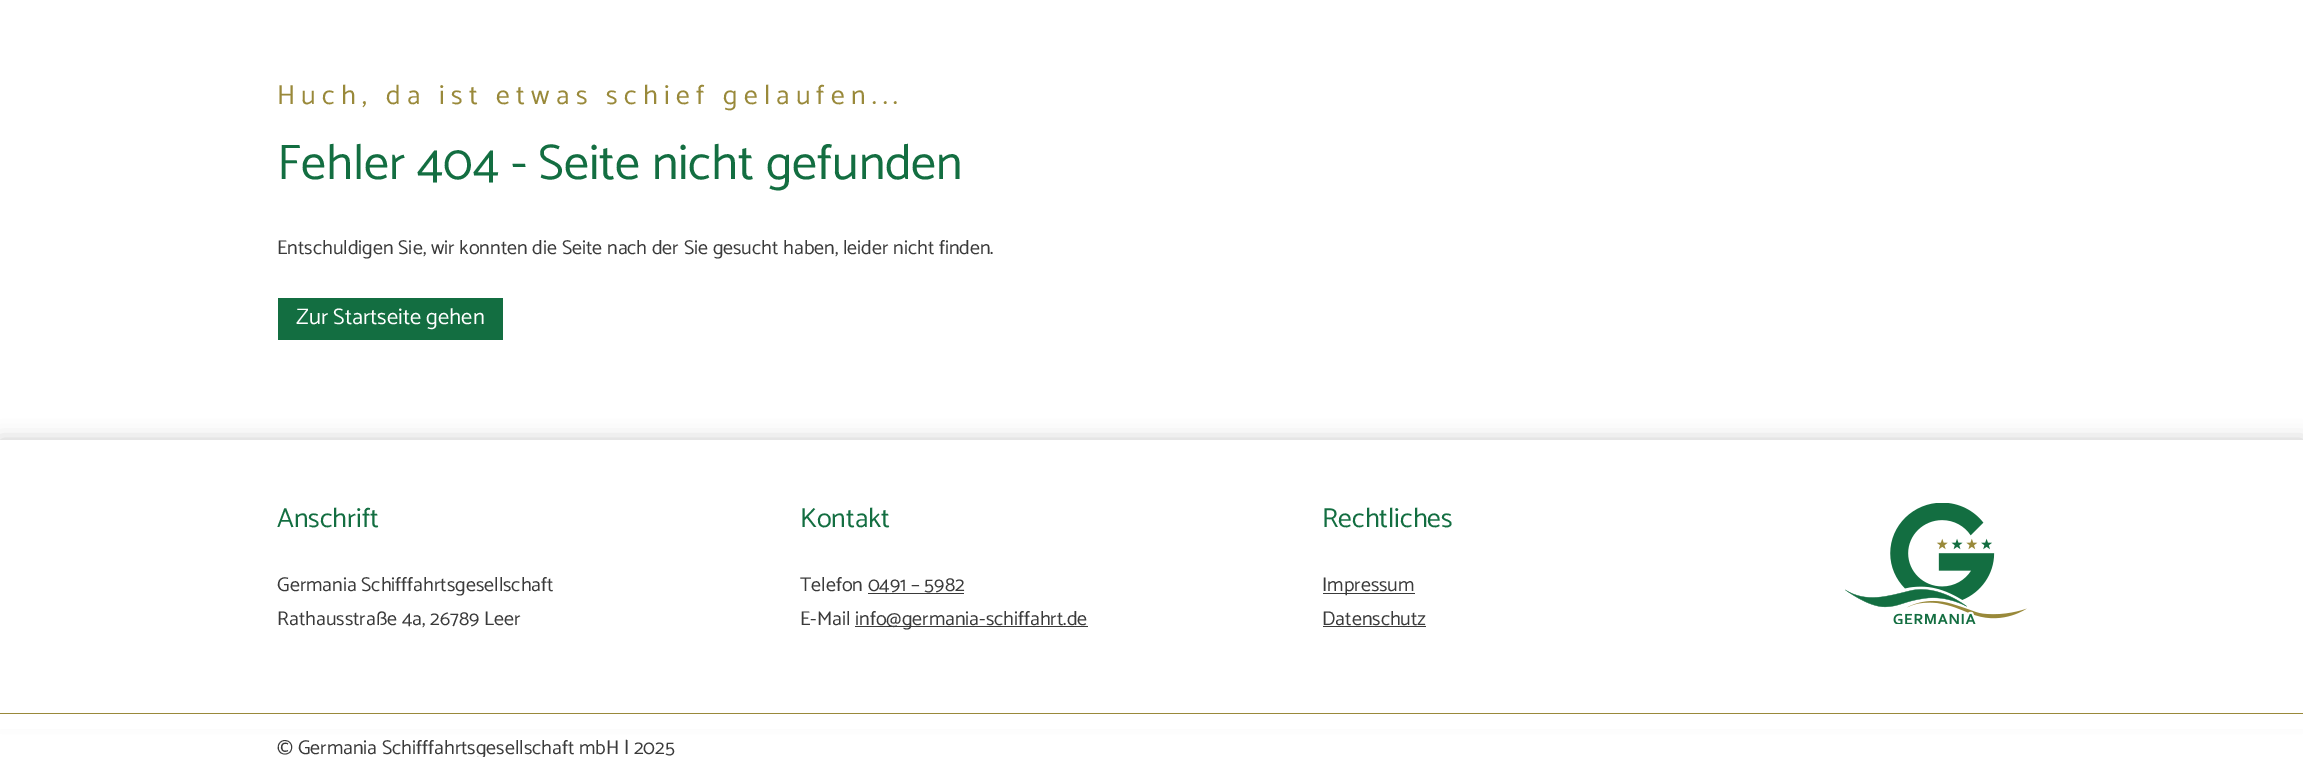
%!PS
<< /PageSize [2303 757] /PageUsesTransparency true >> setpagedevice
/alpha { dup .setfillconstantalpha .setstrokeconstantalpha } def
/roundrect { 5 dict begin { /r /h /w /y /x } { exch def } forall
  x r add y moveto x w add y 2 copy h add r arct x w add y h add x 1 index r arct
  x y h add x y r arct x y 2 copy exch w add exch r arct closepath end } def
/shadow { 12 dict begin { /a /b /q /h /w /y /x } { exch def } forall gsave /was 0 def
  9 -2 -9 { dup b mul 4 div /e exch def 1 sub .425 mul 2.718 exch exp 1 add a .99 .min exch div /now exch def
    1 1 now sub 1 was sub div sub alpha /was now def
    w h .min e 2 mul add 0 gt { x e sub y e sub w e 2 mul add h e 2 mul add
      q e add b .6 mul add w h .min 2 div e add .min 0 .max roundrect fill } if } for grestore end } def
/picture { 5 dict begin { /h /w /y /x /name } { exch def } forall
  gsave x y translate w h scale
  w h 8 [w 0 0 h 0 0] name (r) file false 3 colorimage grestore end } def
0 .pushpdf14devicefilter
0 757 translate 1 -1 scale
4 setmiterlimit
1 setgray
0 0 2303 757 rectfill
/Catamaran-Regular [27.5 0 0 -27.5 0 0] selectfont
0.6 0.537 0.227 setrgbcolor
277 104 moveto 6.25 0 (Huch, da ist etwas schief gelaufen...) ashow
/Catamaran-Regular [50 0 0 -50 0 0] selectfont
0.075 0.431 0.255 setrgbcolor
277 179 moveto (Fehler 404 - Seite nicht gefunden) show
/Catamaran-Regular [20 0 0 -20 0 0] selectfont
0.227 setgray
277 254 moveto (Entschuldigen Sie, wir konnten die Seite nach der Sie gesucht haben, leider nicht finden.) show
0.075 0.431 0.255 setrgbcolor
278 298 225 42 rectfill
/Catamaran-Regular [22.5 0 0 -22.5 0 0] selectfont
1 setgray
296 324 moveto (Zur Startseite gehen) show
0 setgray
0 440 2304 273 0 9.5 0.2 shadow
1 setgray
0 440 2303 273 rectfill
/Catamaran-Regular [27.5 0 0 -27.5 0 0] selectfont
0.075 0.431 0.255 setrgbcolor
277 527 moveto (Anschrift) show
/Catamaran-Regular [20 0 0 -20 0 0] selectfont
0.227 setgray
277 591 moveto (Germania Schifffahrtsgesellschaft) show
277 625 moveto (Rathausstraße 4a, 26789 Leer) show
/Catamaran-Regular [27.5 0 0 -27.5 0 0] selectfont
0.075 0.431 0.255 setrgbcolor
800 527 moveto (Kontakt) show
/Catamaran-Regular [20 0 0 -20 0 0] selectfont
0.227 setgray
800 591 moveto (Telefon 0491 – 5982) show
868 593 96 1 rectfill
800 625 moveto (E-Mail) show
855 626 233 1 rectfill
855 625 moveto (info@germania-schiffahrt.de) show
/Catamaran-Regular [27.5 0 0 -27.5 0 0] selectfont
0.075 0.431 0.255 setrgbcolor
1322 527 moveto (Rechtliches) show
0.227 setgray
1323 593 92 1 rectfill
/Catamaran-Regular [20 0 0 -20 0 0] selectfont
1322 591 moveto (Impressum) show
1322 625 moveto (Datenschutz) show
1323 626 103 1 rectfill
(img1.rgb) 1845 503 182 121 picture
1 setgray
0 714 2303 15 rectfill
0.6 0.537 0.227 setrgbcolor
0 713 2303 1 rectfill
0.227 setgray
277 754 moveto (© Germania Schifffahrtsgesellschaft mbH | 2025) show
.poppdf14devicefilter showpage
